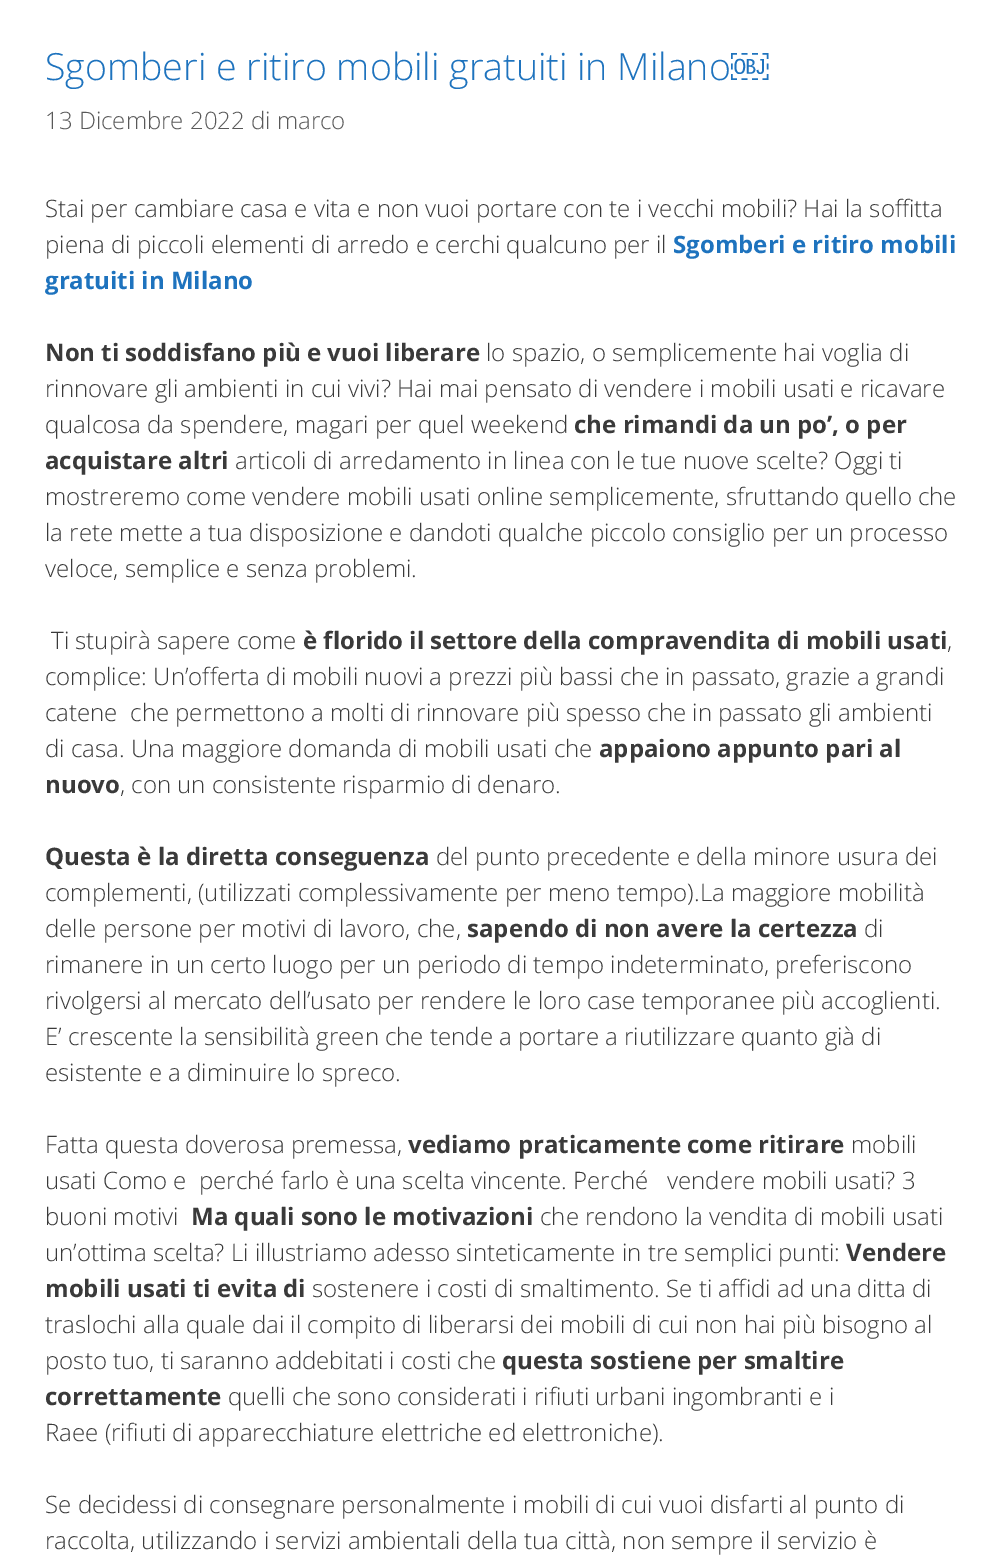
%!PS
<< /PageSize [1002 1557] >> setpagedevice
0 1557 translate 1 -1 scale
4 setmiterlimit
1 setgray
0 0 1002 1557 rectfill
/OpenSans-Light [37.5 0 0 -37.5 0 0] selectfont
0.118 0.451 0.745 setrgbcolor
45 80 moveto (Sgomberi e ritiro mobili gratuiti in Milano) show
/LiberationSans-Regular [37.5 0 0 -37.5 0 0] selectfont
731 80 moveto (￼) show
/OpenSans-Light [24 0 0 -24 0 0] selectfont
0.349 setgray
45 129 moveto (13 Dicembre 2022 di marco) show
0.227 setgray
45 217 moveto (Stai per cambiare casa e vita e non vuoi portare con te i vecchi mobili? Hai la soffitta) show
45 253 moveto (piena di piccoli elementi di arredo e cerchi qualcuno per il) show
/OpenSans-Bold [24 0 0 -24 0 0] selectfont
0.118 0.451 0.745 setrgbcolor
673 253 moveto (Sgomberi e ritiro mobili) show
45 289 moveto (gratuiti in Milano) show
0.227 setgray
45 361 moveto (Non ti soddisfano più e vuoi liberare) show
/OpenSans-Light [24 0 0 -24 0 0] selectfont
486 361 moveto (lo spazio, o semplicemente hai voglia di) show
45 397 moveto (rinnovare gli ambienti in cui vivi? Hai mai pensato di vendere i mobili usati e ricavare) show
45 433 moveto (qualcosa da spendere, magari per quel weekend) show
/OpenSans-Bold [24 0 0 -24 0 0] selectfont
574 433 moveto (che rimandi da un po’, o per) show
45 469 moveto (acquistare altri) show
/OpenSans-Light [24 0 0 -24 0 0] selectfont
235 469 moveto (articoli di arredamento in linea con le tue nuove scelte? Oggi ti) show
45 505 moveto (mostreremo come vendere mobili usati online semplicemente, sfruttando quello che) show
45 541 moveto (la rete mette a tua disposizione e dandoti qualche piccolo consiglio per un processo) show
45 577 moveto (veloce, semplice e senza problemi.) show
51 649 moveto (Ti stupirà sapere come) show
/OpenSans-Bold [24 0 0 -24 0 0] selectfont
303 649 moveto (è florido il settore della compravendita di mobili usati) show
/OpenSans-Light [24 0 0 -24 0 0] selectfont
947 649 moveto (,) show
45 685 moveto (complice: Un’offerta di mobili nuovi a prezzi più bassi che in passato, grazie a grandi) show
45 721 moveto (catene  che permettono a molti di rinnovare più spesso che in passato gli ambienti) show
45 757 moveto (di casa. Una maggiore domanda di mobili usati che) show
/OpenSans-Bold [24 0 0 -24 0 0] selectfont
599 757 moveto (appaiono appunto pari al) show
45 793 moveto (nuovo) show
/OpenSans-Light [24 0 0 -24 0 0] selectfont
120 793 moveto (, con un consistente risparmio di denaro.) show
/OpenSans-Bold [24 0 0 -24 0 0] selectfont
45 865 moveto (Questa è la diretta conseguenza) show
/OpenSans-Light [24 0 0 -24 0 0] selectfont
436 865 moveto (del punto precedente e della minore usura dei) show
45 901 moveto (complementi, \(utilizzati complessivamente per meno tempo\).La maggiore mobilità) show
45 937 moveto (delle persone per motivi di lavoro, che,) show
/OpenSans-Bold [24 0 0 -24 0 0] selectfont
467 937 moveto (sapendo di non avere la certezza) show
/OpenSans-Light [24 0 0 -24 0 0] selectfont
864 937 moveto (di) show
45 973 moveto (rimanere in un certo luogo per un periodo di tempo indeterminato, preferiscono) show
45 1009 moveto (rivolgersi al mercato dell’usato per rendere le loro case temporanee più accoglienti.) show
45 1045 moveto (E’ crescente la sensibilità green che tende a portare a riutilizzare quanto già di) show
45 1081 moveto (esistente e a diminuire lo spreco.) show
45 1153 moveto (Fatta questa doverosa premessa,) show
/OpenSans-Bold [24 0 0 -24 0 0] selectfont
408 1153 moveto (vediamo praticamente come ritirare) show
/OpenSans-Light [24 0 0 -24 0 0] selectfont
851 1153 moveto (mobili) show
45 1189 moveto (usati Como e  perché farlo è una scelta vincente. Perché   vendere mobili usati? 3) show
45 1225 moveto (buoni motivi) show
/OpenSans-Bold [24 0 0 -24 0 0] selectfont
191 1225 moveto (Ma quali sono le motivazioni) show
/OpenSans-Light [24 0 0 -24 0 0] selectfont
540 1225 moveto (che rendono la vendita di mobili usati) show
45 1261 moveto (un’ottima scelta? Li illustriamo adesso sinteticamente in tre semplici punti:) show
/OpenSans-Bold [24 0 0 -24 0 0] selectfont
846 1261 moveto (Vendere) show
45 1297 moveto (mobili usati ti evita di) show
/OpenSans-Light [24 0 0 -24 0 0] selectfont
312 1297 moveto (sostenere i costi di smaltimento. Se ti affidi ad una ditta di) show
45 1333 moveto (traslochi alla quale dai il compito di liberarsi dei mobili di cui non hai più bisogno al) show
45 1369 moveto (posto tuo, ti saranno addebitati i costi che) show
/OpenSans-Bold [24 0 0 -24 0 0] selectfont
502 1369 moveto (questa sostiene per smaltire) show
45 1405 moveto (correttamente) show
/OpenSans-Light [24 0 0 -24 0 0] selectfont
228 1405 moveto (quelli che sono considerati i rifiuti urbani ingombranti e i) show
45 1441 moveto (Raee \(rifiuti di apparecchiature elettriche ed elettroniche\).) show
45 1513 moveto (Se decidessi di consegnare personalmente i mobili di cui vuoi disfarti al punto di) show
45 1549 moveto (raccolta, utilizzando i servizi ambientali della tua città, non sempre il servizio è) show
showpage
